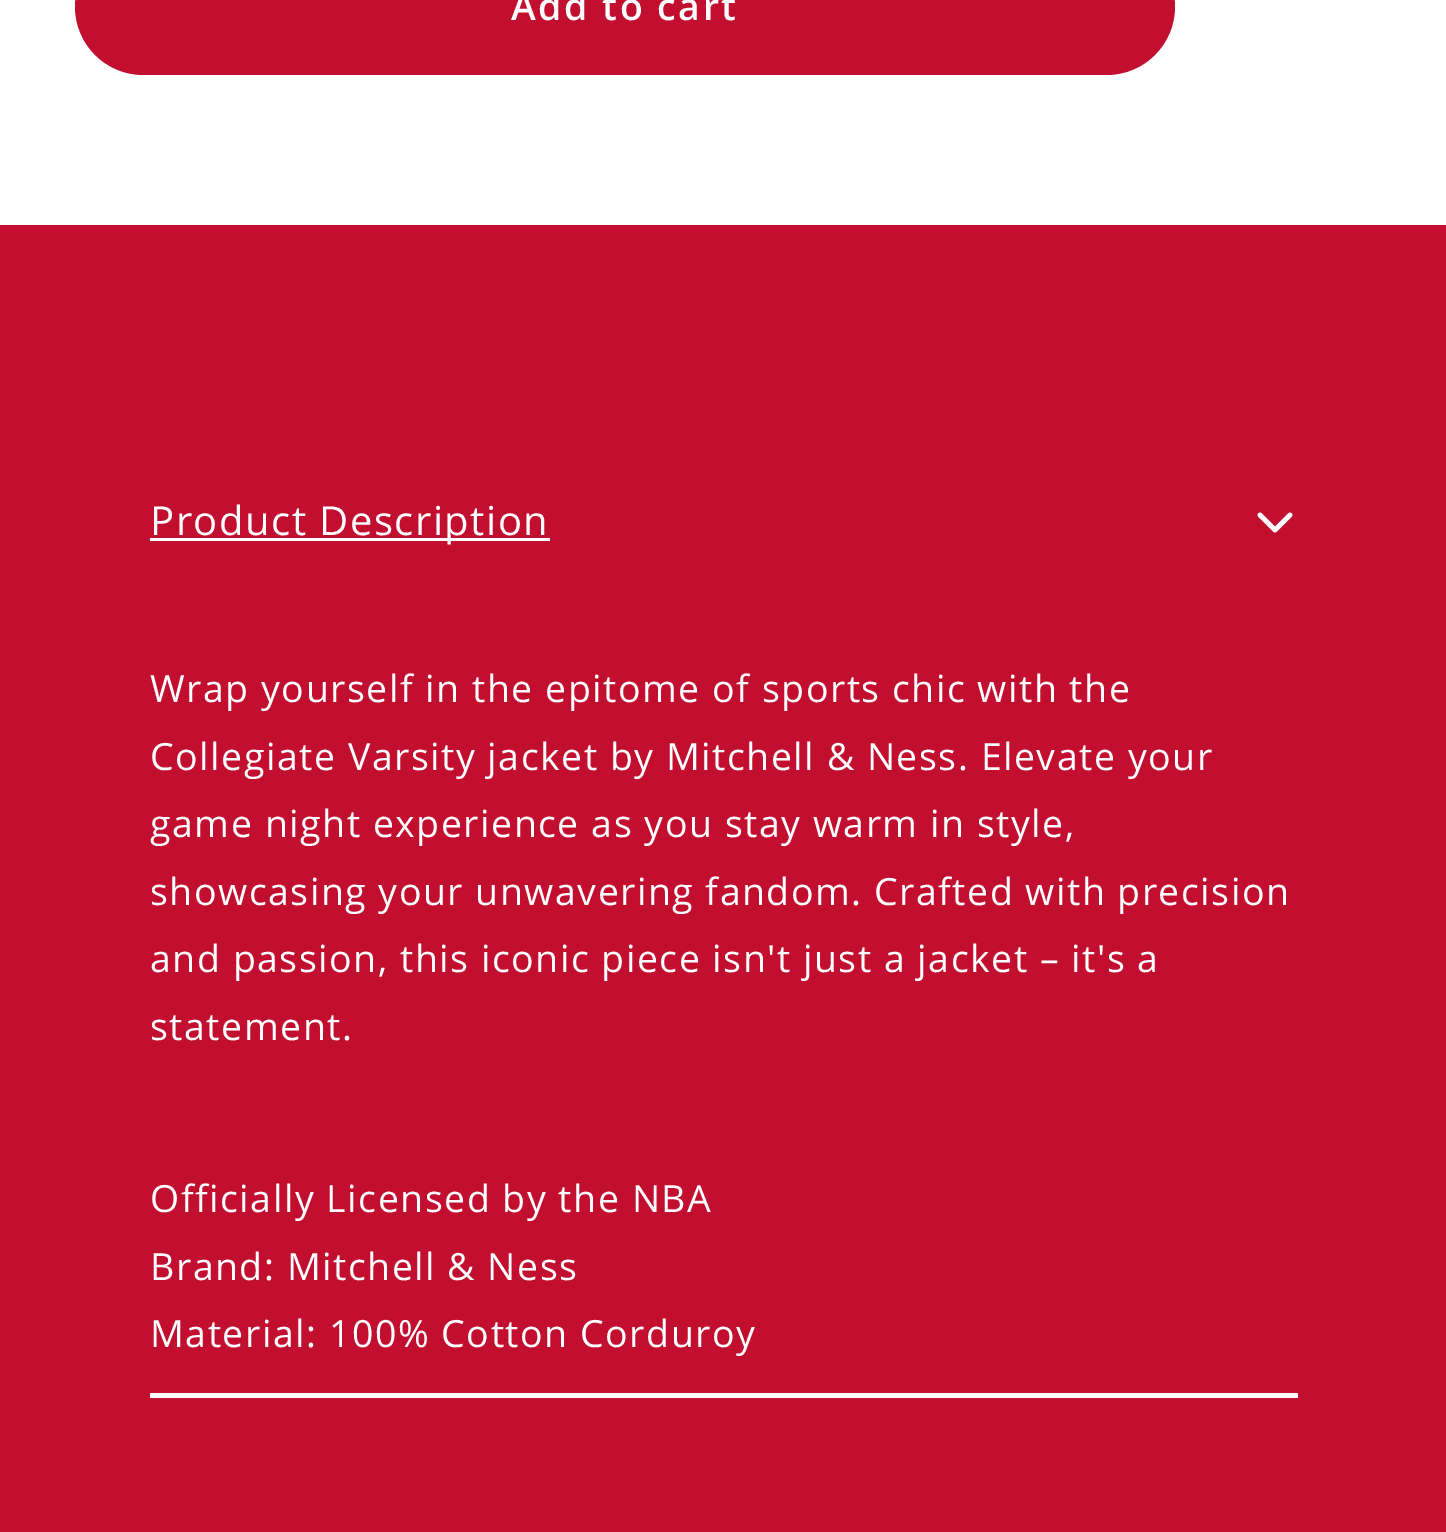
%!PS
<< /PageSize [1446 1532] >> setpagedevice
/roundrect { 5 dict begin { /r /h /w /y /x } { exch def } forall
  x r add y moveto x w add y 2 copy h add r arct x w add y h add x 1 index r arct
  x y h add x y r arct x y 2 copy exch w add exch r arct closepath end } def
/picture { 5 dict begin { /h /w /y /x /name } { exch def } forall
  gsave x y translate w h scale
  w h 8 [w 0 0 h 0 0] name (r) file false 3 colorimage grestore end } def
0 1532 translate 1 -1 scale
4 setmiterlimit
1 setgray
0 0 1446 1532 rectfill
0.761 0.059 0.184 setrgbcolor
75 -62 1100 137 68.5 roundrect fill
/OpenSans-SemiBold [37.5 0 0 -37.5 0 0] selectfont
1 setgray
511 20 moveto 2.5 0 (Add to cart) ashow
0.761 0.059 0.184 setrgbcolor
0 225 1446 1307 rectfill
1 setgray
150 1393 1148 5 rectfill
150 538 400 3 rectfill
/OpenSans-Regular [40 0 0 -40 0 0] selectfont
150 535 moveto 1.5 0 (Product Description) ashow
(img1.rgb) 1257 512 36 21 picture
/OpenSans-Regular [37.5 0 0 -37.5 0 0] selectfont
150 702 moveto 1.5 0 (Wrap yourself in the epitome of sports chic with the) ashow
150 770 moveto 1.5 0 (Collegiate Varsity jacket by Mitchell & Ness. Elevate your) ashow
150 837 moveto 1.5 0 (game night experience as you stay warm in style,) ashow
150 905 moveto -0.25 0 32 1.5 0 (showcasing your unwavering fandom. Crafted with precision) awidthshow
150 972 moveto 1.5 0 (and passion, this iconic piece isn't just a jacket – it's a) ashow
150 1040 moveto 1.5 0 (statement.) ashow
150 1212 moveto 1.5 0 (Officially Licensed by the NBA) ashow
150 1280 moveto 1.5 0 (Brand: Mitchell & Ness) ashow
150 1347 moveto 1.5 0 (Material: 100% Cotton Corduroy) ashow
showpage
